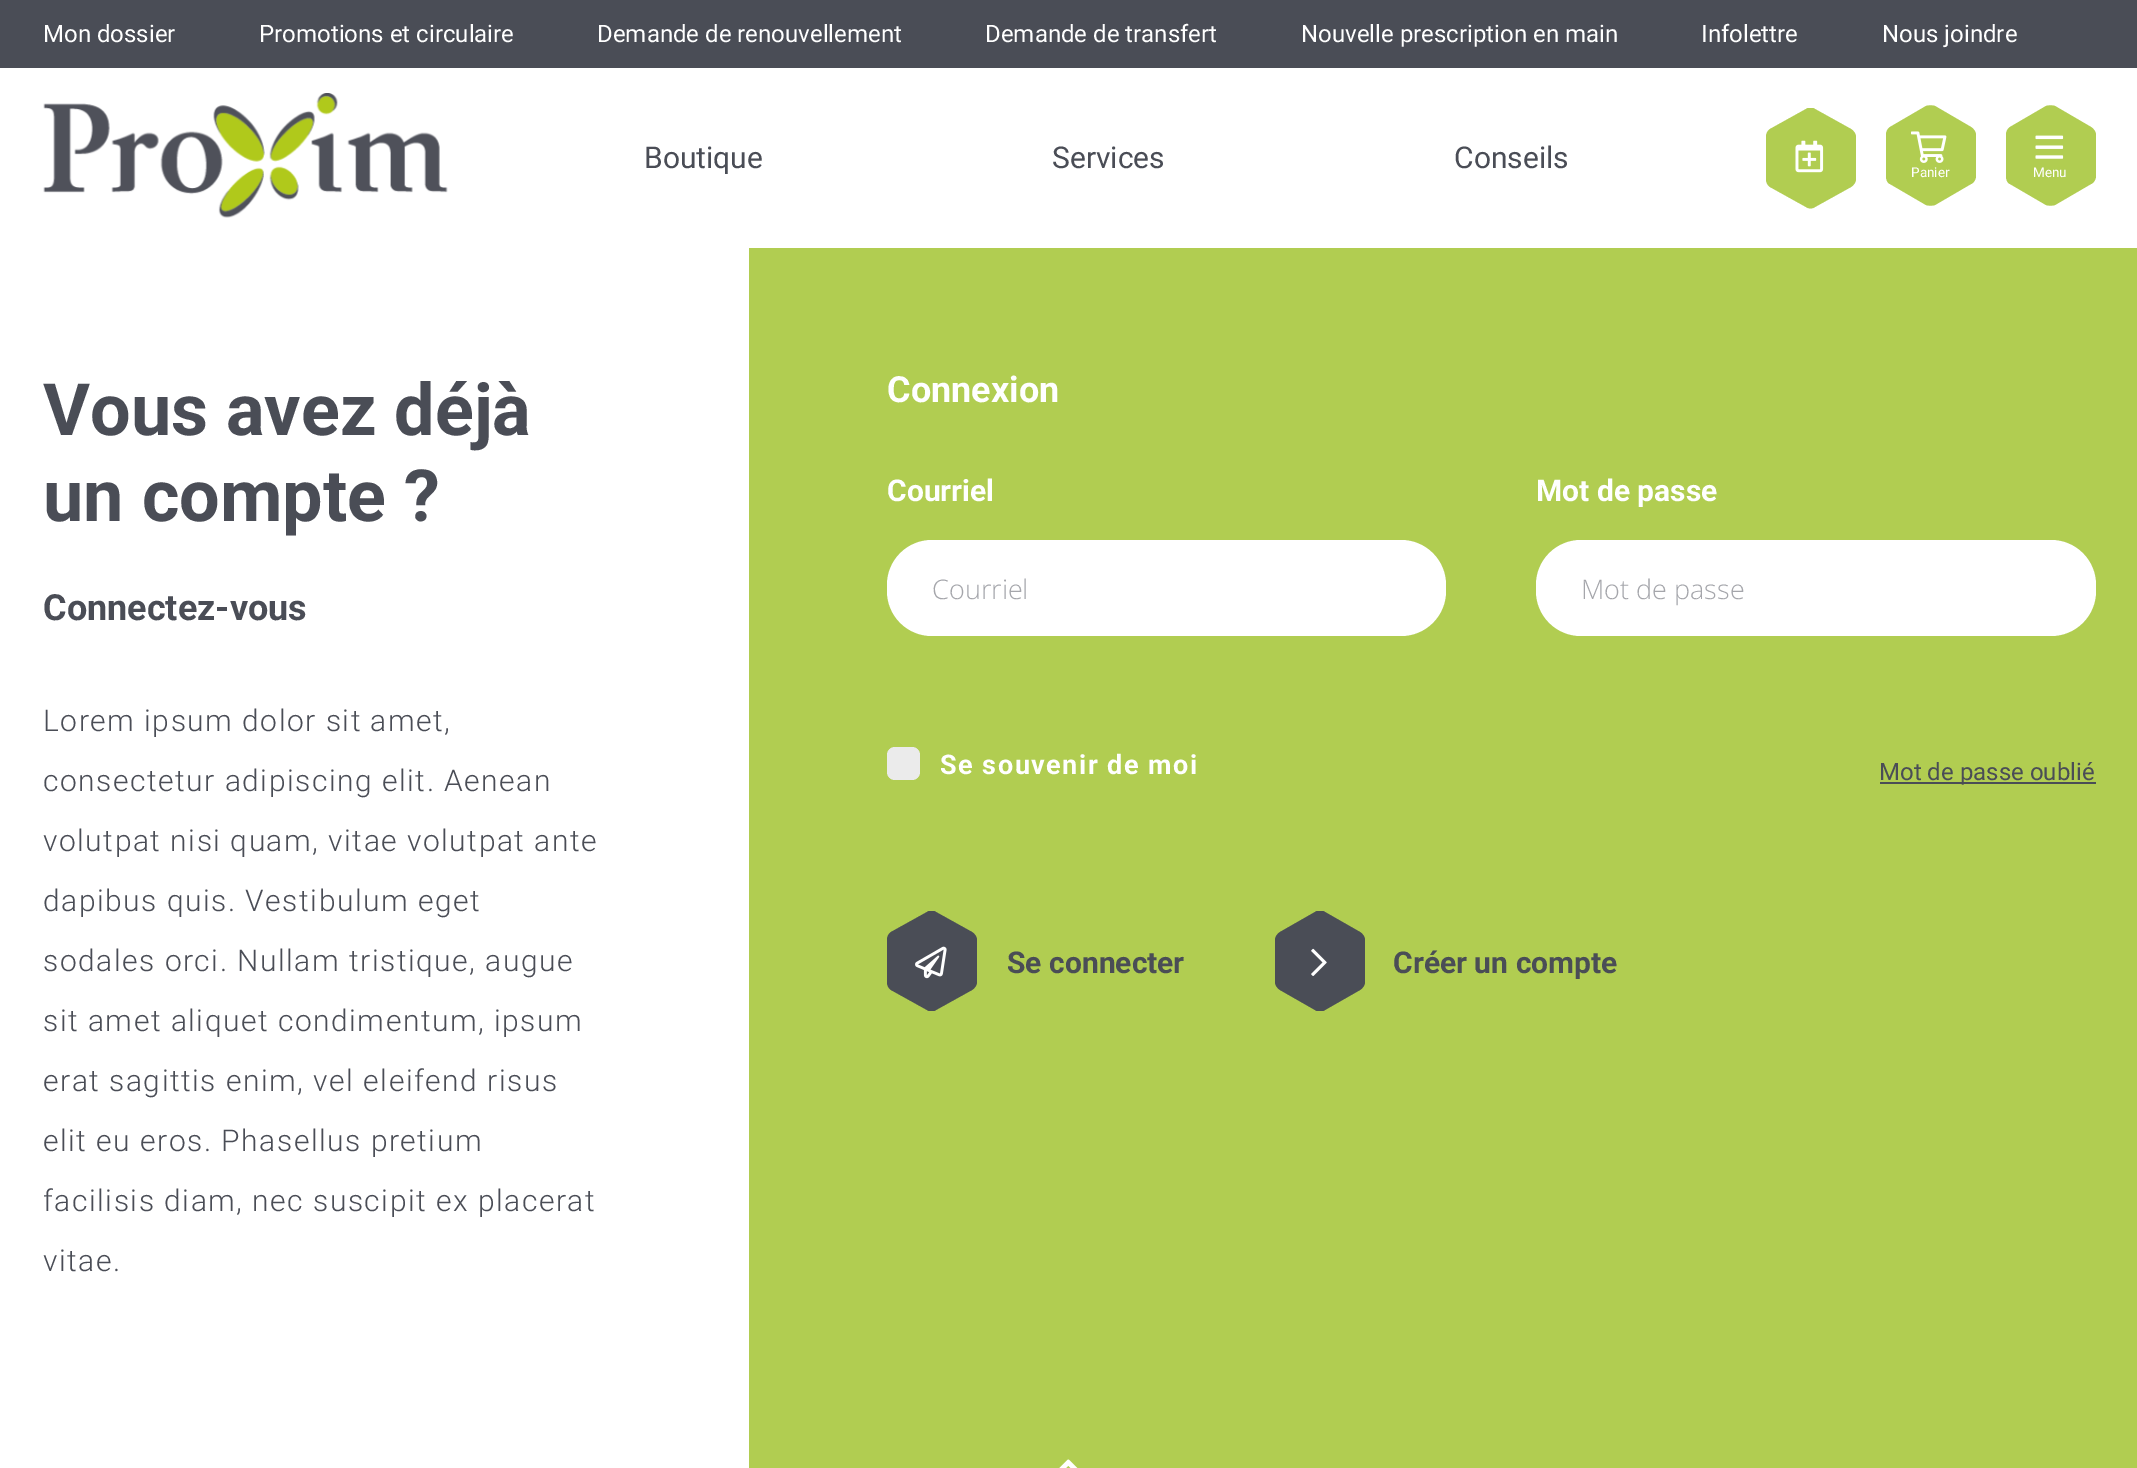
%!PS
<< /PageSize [2137 1468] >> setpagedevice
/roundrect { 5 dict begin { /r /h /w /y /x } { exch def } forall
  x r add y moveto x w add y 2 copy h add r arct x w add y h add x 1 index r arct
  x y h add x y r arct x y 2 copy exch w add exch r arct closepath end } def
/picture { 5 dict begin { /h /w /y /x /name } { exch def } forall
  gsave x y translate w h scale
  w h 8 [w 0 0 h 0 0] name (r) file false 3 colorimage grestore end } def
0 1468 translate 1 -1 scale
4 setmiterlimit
1 setgray
0 0 2137 1468 rectfill
0.29 0.302 0.337 setrgbcolor
0 0 2137 68 rectfill
/Roboto-Regular [24 0 0 -24 0 0] selectfont
1 setgray
43 42 moveto (Mon dossier) show
259 42 moveto (Promotions et circulaire) show
597 42 moveto (Demande de renouvellement) show
985 42 moveto (Demande de transfert) show
1301 42 moveto (Nouvelle prescription en main) show
1701 42 moveto (Infolettre) show
1882 42 moveto (Nous joindre) show
(img1.rgb) 43 93 405 125 picture
/Roboto-Regular [30 0 0 -30 0 0] selectfont
0.29 0.302 0.337 setrgbcolor
644 168 moveto (Boutique) show
1052 168 moveto (Services) show
1454 168 moveto (Conseils) show
gsave
1766 108 90 101 rectclip
0.694 0.804 0.318 setrgbcolor
newpath 1815 207 moveto 1851 187 lineto 1854 185 1856 182 1856 179 curveto 1856 137 lineto 1856 134 1854 131 1851 129 curveto 1815 109 lineto 1812 107 1809 107 1806 109 curveto 1770 129 lineto 1767 131 1766 134 1766 137 curveto 1766 179 lineto 1766 182 1767 185 1770 187 curveto 1806 207 lineto 1809 209 1812 209 1815 207 curveto closepath fill
grestore
(img2.rgb) 1795 140 29 33 picture
0.694 0.804 0.318 setrgbcolor
newpath 1935 205 moveto 1971 184 lineto 1974 183 1976 179 1976 176 curveto 1976 135 lineto 1976 132 1974 129 1971 127 curveto 1935 106 lineto 1932 105 1929 105 1926 106 curveto 1890 127 lineto 1887 129 1886 132 1886 135 curveto 1886 176 lineto 1886 179 1887 183 1890 184 curveto 1926 205 lineto 1929 206 1932 206 1935 205 curveto closepath fill
(img3.rgb) 1911 131 36 32 picture
/Roboto-Regular [13.5 0 0 -13.5 0 0] selectfont
1 setgray
1911 177 moveto (Panier) show
0.694 0.804 0.318 setrgbcolor
newpath 2055 205 moveto 2091 184 lineto 2094 183 2096 179 2096 176 curveto 2096 135 lineto 2096 132 2094 129 2091 127 curveto 2055 106 lineto 2052 105 2049 105 2046 106 curveto 2010 127 lineto 2007 129 2006 132 2006 135 curveto 2006 176 lineto 2006 179 2007 183 2010 184 curveto 2046 205 lineto 2049 206 2052 206 2055 205 curveto closepath fill
(img4.rgb) 2035 135 29 24 picture
1 setgray
2033 177 moveto (Menu) show
/Roboto-Bold [72 0 0 -72 0 0] selectfont
0.29 0.302 0.337 setrgbcolor
43 435 moveto (Vous avez déjà) show
43 521 moveto (un compte ?) show
/Roboto-Bold [36 0 0 -36 0 0] selectfont
43 620 moveto (Connectez-vous) show
/Roboto-Light [30 0 0 -30 0 0] selectfont
43 731 moveto 1.5 0 (Lorem ipsum dolor sit amet,) ashow
43 791 moveto 1.5 0 (consectetur adipiscing elit. Aenean) ashow
43 851 moveto 1.5 0 (volutpat nisi quam, vitae volutpat ante) ashow
43 911 moveto 1.5 0 (dapibus quis. Vestibulum eget) ashow
43 971 moveto 1.5 0 (sodales orci. Nullam tristique, augue) ashow
43 1031 moveto 1.5 0 (sit amet aliquet condimentum, ipsum) ashow
43 1091 moveto 1.5 0 (erat sagittis enim, vel eleifend risus) ashow
43 1151 moveto 1.5 0 (elit eu eros. Phasellus pretium) ashow
43 1211 moveto 1.5 0 (facilisis diam, nec suscipit ex placerat) ashow
43 1271 moveto 1.5 0 (vitae.) ashow
0.694 0.804 0.318 setrgbcolor
749 248 1388 1220 rectfill
/Roboto-Bold [36 0 0 -36 0 0] selectfont
1 setgray
887 402 moveto (Connexion) show
/Roboto-Bold [30 0 0 -30 0 0] selectfont
887 501 moveto (Courriel) show
887 540 559 96 45 roundrect fill
/OpenSans-Light [27 0 0 -27 0 0] selectfont
0.647 0.651 0.671 setrgbcolor
932 599 moveto (Courriel) show
/Roboto-Bold [30 0 0 -30 0 0] selectfont
1 setgray
1536 501 moveto (Mot de passe) show
1536 540 560 96 45 roundrect fill
/OpenSans-Light [27 0 0 -27 0 0] selectfont
0.647 0.651 0.671 setrgbcolor
1581 599 moveto (Mot de passe) show
0.922 setgray
887 747 33 33 8 roundrect fill
/Roboto-Bold [27 0 0 -27 0 0] selectfont
1 setgray
940 774 moveto 1.5 0 (Se souvenir de moi) ashow
0.29 0.302 0.337 setrgbcolor
1880 782 216 2 rectfill
/Roboto-Regular [24 0 0 -24 0 0] selectfont
1879 780 moveto (Mot de passe oublié) show
gsave
887 911 90 100 rectclip
newpath 936 1010 moveto 972 990 lineto 975 988 977 985 977 982 curveto 977 940 lineto 977 937 975 934 972 932 curveto 936 912 lineto 933 910 930 910 927 912 curveto 891 932 lineto 888 934 887 937 887 940 curveto 887 982 lineto 887 985 888 988 891 990 curveto 927 1010 lineto 930 1012 933 1012 936 1010 curveto closepath fill
grestore
(img5.rgb) 915 946 32 33 picture
/Roboto-Bold [30 0 0 -30 0 0] selectfont
1007 973 moveto (Se connecter) show
gsave
1275 911 90 100 rectclip
newpath 1325 1010 moveto 1360 990 lineto 1363 988 1365 985 1365 982 curveto 1365 940 lineto 1365 937 1363 934 1360 932 curveto 1325 912 lineto 1322 910 1318 910 1315 912 curveto 1280 932 lineto 1277 934 1275 937 1275 940 curveto 1275 982 lineto 1275 985 1277 988 1280 990 curveto 1315 1010 lineto 1318 1012 1322 1012 1325 1010 curveto closepath fill
grestore
(img6.rgb) 1311 948 16 28 picture
1393 973 moveto (Créer un compte) show
(img7.rgb) 1059 1459 19 9 picture
showpage
